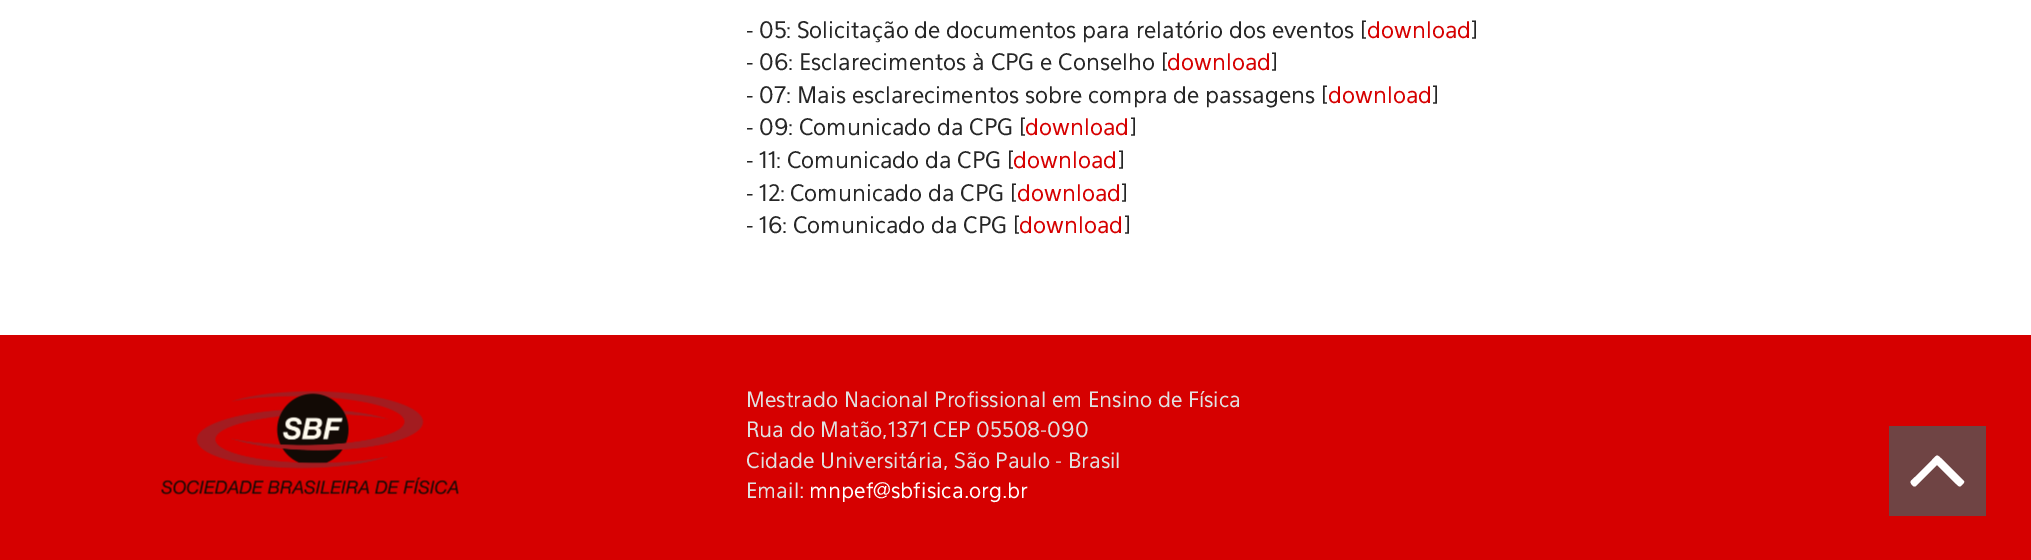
%!PS
<< /PageSize [2031 560] >> setpagedevice
/picture { 5 dict begin { /h /w /y /x /name } { exch def } forall
  gsave x y translate w h scale
  w h 8 [w 0 0 h 0 0] name (r) file false 3 colorimage grestore end } def
0 560 translate 1 -1 scale
4 setmiterlimit
1 setgray
0 0 2031 560 rectfill
/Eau-Regular [22.5 0 0 -22.5 0 0] selectfont
0.149 setgray
746 38 moveto (- 05) show
/Eau-Regular [20 0 0 -20 0 0] selectfont
786 38 moveto (:) show
/Eau-Regular [22.5 0 0 -22.5 0 0] selectfont
797 38 moveto (Solicitação de documentos para relatório dos eventos [) show
0.839 0 0 setrgbcolor
1367 38 moveto (download) show
0.149 setgray
1471 38 moveto (]) show
746 70 moveto (- 06) show
/Eau-Regular [20 0 0 -20 0 0] selectfont
788 70 moveto (:) show
/Eau-Regular [22.5 0 0 -22.5 0 0] selectfont
799 70 moveto (Esclarecimentos à CPG e Conselho [) show
0.839 0 0 setrgbcolor
1167 70 moveto (download) show
0.149 setgray
1271 70 moveto (]) show
746 103 moveto (- 07) show
/Eau-Regular [20 0 0 -20 0 0] selectfont
786 103 moveto (:) show
/Eau-Regular [22.5 0 0 -22.5 0 0] selectfont
797 103 moveto (Mais esclarecimentos sobre compra de passagens [) show
0.839 0 0 setrgbcolor
1328 103 moveto (download) show
0.149 setgray
1432 103 moveto (]) show
746 135 moveto (- 09) show
/Eau-Regular [20 0 0 -20 0 0] selectfont
788 135 moveto (:) show
/Eau-Regular [22.5 0 0 -22.5 0 0] selectfont
799 135 moveto (Comunicado da CPG [) show
0.839 0 0 setrgbcolor
1025 135 moveto (download) show
0.149 setgray
1130 135 moveto (]) show
746 168 moveto (- 11) show
/Eau-Regular [20 0 0 -20 0 0] selectfont
776 168 moveto (:) show
/Eau-Regular [22.5 0 0 -22.5 0 0] selectfont
787 168 moveto (Comunicado da CPG [) show
0.839 0 0 setrgbcolor
1013 168 moveto (download) show
0.149 setgray
1118 168 moveto (]) show
746 201 moveto (- 12) show
/Eau-Regular [20 0 0 -20 0 0] selectfont
780 201 moveto (:) show
/Eau-Regular [22.5 0 0 -22.5 0 0] selectfont
790 201 moveto (Comunicado da CPG [) show
0.839 0 0 setrgbcolor
1017 201 moveto (download) show
0.149 setgray
1121 201 moveto (]) show
746 233 moveto (- 16) show
/Eau-Regular [20 0 0 -20 0 0] selectfont
782 233 moveto (:) show
/Eau-Regular [22.5 0 0 -22.5 0 0] selectfont
793 233 moveto (Comunicado da CPG [) show
0.839 0 0 setrgbcolor
1019 233 moveto (download) show
0.149 setgray
1124 233 moveto (]) show
0.839 0 0 setrgbcolor
0 335 2031 225 rectfill
(img1.rgb) 161 390 298 105 picture
/Eau-Regular [21 0 0 -21 0 0] selectfont
0.882 setgray
746 407 moveto (Mestrado Nacional Profissional em Ensino de Física) show
746 437 moveto (Rua do Matão,1371 CEP 05508-090) show
746 468 moveto (Cidade Universitária, São Paulo - Brasil) show
746 498 moveto (Email:) show
1 setgray
809 498 moveto (mnpef@sbfisica.org.br) show
0.435 0.267 0.267 setrgbcolor
1889 426 97 90 rectfill
1 setgray
newpath 1964 481 moveto 1965 482 1963 484 1962 485 curveto 1959 488 1959 486 1955 483 curveto 1937 465 lineto 1916 486 lineto 1914 487 1913 486 1912 485 curveto 1909 481 1911 481 1915 477 curveto 1932 460 lineto 1938 454 1936 454 1943 460 curveto closepath fill
showpage
